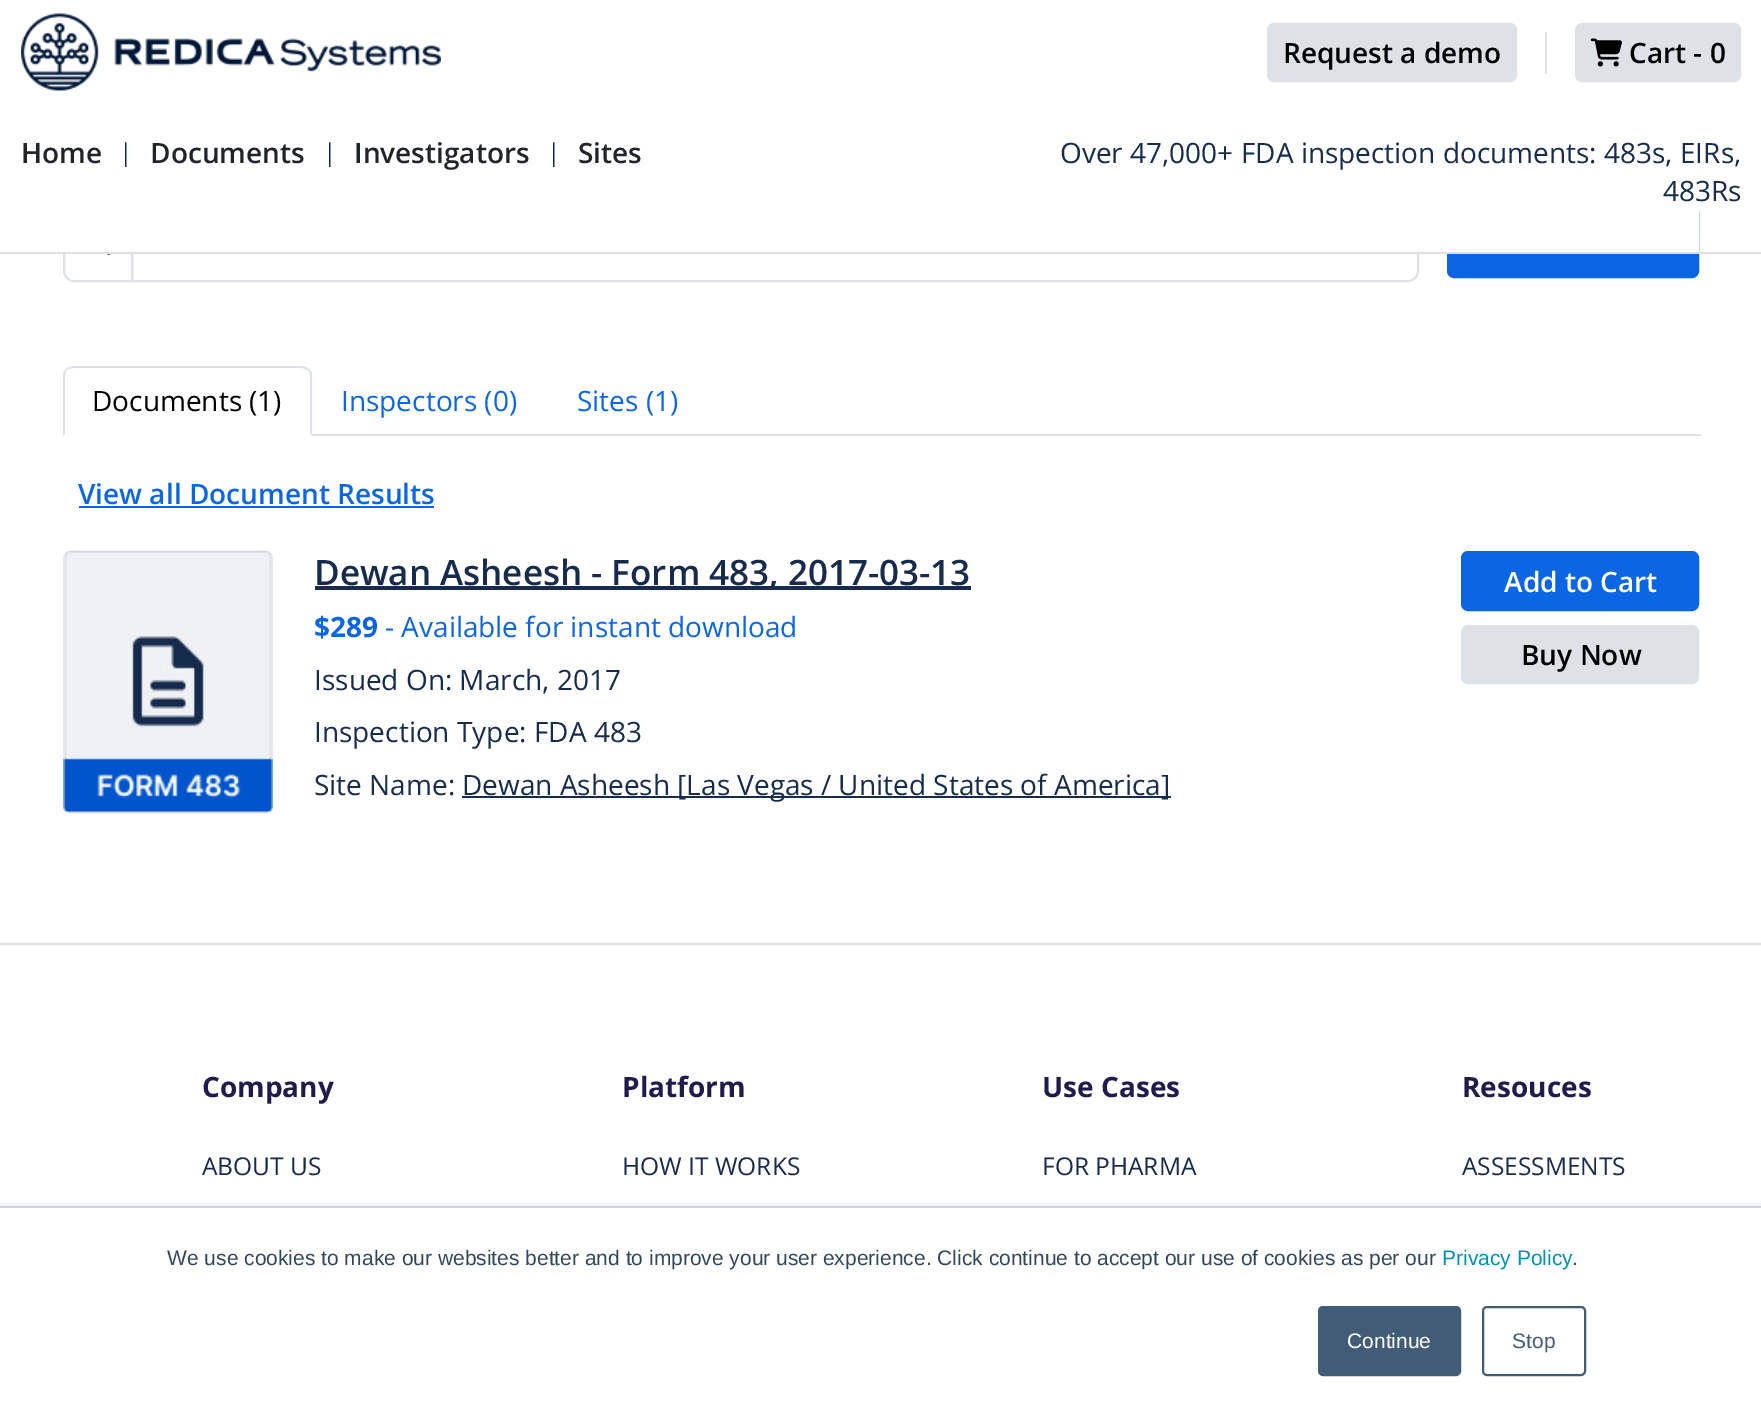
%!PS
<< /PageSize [1761 1421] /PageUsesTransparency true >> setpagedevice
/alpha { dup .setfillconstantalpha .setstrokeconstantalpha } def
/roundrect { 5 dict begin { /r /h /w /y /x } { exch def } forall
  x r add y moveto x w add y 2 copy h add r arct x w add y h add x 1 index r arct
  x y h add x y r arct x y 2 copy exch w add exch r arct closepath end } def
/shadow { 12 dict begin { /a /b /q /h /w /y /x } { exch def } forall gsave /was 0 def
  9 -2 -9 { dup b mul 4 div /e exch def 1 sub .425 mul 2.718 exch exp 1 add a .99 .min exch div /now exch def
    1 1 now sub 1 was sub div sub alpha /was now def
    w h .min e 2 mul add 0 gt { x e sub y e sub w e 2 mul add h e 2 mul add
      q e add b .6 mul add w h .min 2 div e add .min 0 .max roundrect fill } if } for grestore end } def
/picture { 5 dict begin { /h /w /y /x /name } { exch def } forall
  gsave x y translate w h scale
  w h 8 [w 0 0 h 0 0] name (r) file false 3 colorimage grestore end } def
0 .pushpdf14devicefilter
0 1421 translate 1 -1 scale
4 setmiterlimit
1 setgray
0 0 1761 1421 rectfill
0.871 0.886 0.902 setrgbcolor
2 setlinewidth
newpath 74 206 moveto 132 206 lineto 132 281 lineto 74 281 lineto 68.5 281 64 276.5 64 271 curveto 64 216 lineto 64 210.5 68.5 206 74 206 curveto closepath stroke
newpath 132 206 moveto 1408 206 lineto 1413.5 206 1418 210.5 1418 216 curveto 1418 271 lineto 1418 276.5 1413.5 281 1408 281 curveto 132 281 lineto closepath stroke
0.047 0.4 0.894 setrgbcolor
1448 206 250 71 6 roundrect gsave fill grestore
stroke
1 setgray
63 205 1636 47 rectfill
0.871 0.886 0.902 setrgbcolor
0 252 1761 2 rectfill
(img1.rgb) 21 13 420 78 picture
1268 24 248 57 6 roundrect gsave fill grestore
stroke
/OpenSans-SemiBold [28 0 0 -28 0 0] selectfont
0 setgray
1283 63 moveto (Request a demo) show
0.871 0.886 0.902 setrgbcolor
1545 32 2 42 rectfill
1576 24 164 57 6 roundrect gsave fill grestore
stroke
(img2.rgb) 1590 38 32 29 picture
0 setgray
1629 63 moveto (Cart - 0) show
0.129 0.145 0.161 setrgbcolor
21 163 moveto (Home) show
/OpenSans-Regular [24.5 0 0 -24.5 0 0] selectfont
0.09 0.169 0.302 setrgbcolor
119 161 moveto (|) show
/OpenSans-SemiBold [28 0 0 -28 0 0] selectfont
0.129 0.145 0.161 setrgbcolor
150 163 moveto (Documents) show
/OpenSans-Regular [24.5 0 0 -24.5 0 0] selectfont
0.09 0.169 0.302 setrgbcolor
323 161 moveto (|) show
/OpenSans-SemiBold [28 0 0 -28 0 0] selectfont
0.129 0.145 0.161 setrgbcolor
354 163 moveto (Investigators) show
/OpenSans-Regular [24.5 0 0 -24.5 0 0] selectfont
0.09 0.169 0.302 setrgbcolor
547 161 moveto (|) show
/OpenSans-SemiBold [28 0 0 -28 0 0] selectfont
0.129 0.145 0.161 setrgbcolor
578 163 moveto (Sites) show
/OpenSans-Regular [28 0 0 -28 0 0] selectfont
0.09 0.169 0.302 setrgbcolor
1060 163 moveto (Over 47,000+ FDA inspection documents: 483s, EIRs,) show
1663 201 moveto (483Rs) show
(img3.rgb) 107 254 4 1 picture
0.871 0.886 0.902 setrgbcolor
312 434 1389 2 rectfill
newpath 74 366 moveto 71 366 68 367 66 369 curveto 67 370 lineto 69 369 71 368 74 368 curveto 301 368 lineto 303 368 306 369 307 370 curveto 309 369 lineto 307 367 304 366 301 366 curveto closepath fill
newpath 309 369 moveto 310 370 311 371 312 373 curveto 312 436 lineto 310 434 lineto 310 376 lineto 310 373 309 371 307 370 curveto closepath fill
1 setgray
newpath 312 436 moveto 310 434 lineto 65 434 lineto 63 436 lineto closepath fill
0.871 0.886 0.902 setrgbcolor
newpath 63 436 moveto 65 434 lineto 65 376 lineto 65 374 66 372 67 370 curveto 66 369 lineto 64 371 63 373 63 376 curveto closepath fill
0 setgray
92 411 moveto (Documents \(1\)) show
0.047 0.4 0.894 setrgbcolor
341 411 moveto (Inspectors \(0\)) show
577 411 moveto (Sites \(1\)) show
/OpenSans-SemiBold [28 0 0 -28 0 0] selectfont
78 504 moveto (View all Document Results) show
79 506 355 2 rectfill
(img4.rgb) 63 550 210 264 picture
0.09 0.169 0.302 setrgbcolor
315 586 656 4 rectfill
/OpenSans-SemiBold [35 0 0 -35 0 0] selectfont
314 585 moveto (Dewan Asheesh - Form 483, 2017-03-13) show
/OpenSans-Bold [28 0 0 -28 0 0] selectfont
0.047 0.4 0.894 setrgbcolor
314 637 moveto ($289) show
/OpenSans-Regular [28 0 0 -28 0 0] selectfont
385 637 moveto (- Available for instant download) show
0.09 0.169 0.302 setrgbcolor
314 690 moveto (Issued On: March, 2017) show
314 742 moveto (Inspection Type: FDA 483) show
314 795 moveto (Site Name:) show
462 796 709 2 rectfill
462 795 moveto (Dewan Asheesh [Las Vegas / United States of America]) show
0.047 0.4 0.894 setrgbcolor
1462 552 236 58 6 roundrect gsave fill grestore
stroke
/OpenSans-SemiBold [28 0 0 -28 0 0] selectfont
1 setgray
1504 592 moveto (Add to Cart) show
0.871 0.886 0.902 setrgbcolor
1462 626 236 57 6 roundrect gsave fill grestore
stroke
0 setgray
1521 665 moveto (Buy Now) show
0.871 0.886 0.902 setrgbcolor
0 943 1761 2 rectfill
/OpenSans-Bold [28 0 0 -28 0 0] selectfont
0.122 0.106 0.302 setrgbcolor
202 1097 moveto (Company) show
/OpenSans-Regular [24.5 0 0 -24.5 0 0] selectfont
0.09 0.169 0.302 setrgbcolor
202 1175 moveto (ABOUT US) show
/OpenSans-Bold [28 0 0 -28 0 0] selectfont
0.122 0.106 0.302 setrgbcolor
622 1097 moveto (Platform) show
/OpenSans-Regular [24.5 0 0 -24.5 0 0] selectfont
0.09 0.169 0.302 setrgbcolor
622 1175 moveto (HOW IT WORKS) show
/OpenSans-Bold [28 0 0 -28 0 0] selectfont
0.122 0.106 0.302 setrgbcolor
1042 1097 moveto (Use Cases) show
/OpenSans-Regular [24.5 0 0 -24.5 0 0] selectfont
0.09 0.169 0.302 setrgbcolor
1042 1175 moveto (FOR PHARMA) show
/OpenSans-Bold [28 0 0 -28 0 0] selectfont
0.122 0.106 0.302 setrgbcolor
1462 1097 moveto (Resouces) show
/OpenSans-Regular [24.5 0 0 -24.5 0 0] selectfont
0.09 0.169 0.302 setrgbcolor
1462 1175 moveto (ASSESSMENTS) show
0.918 0.941 0.965 setrgbcolor
0 1204 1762 215 0 2.5 1 shadow
1 setgray
0 1208 1761 213 rectfill
0.796 0.839 0.886 setrgbcolor
0 1206 1761 2 rectfill
/LiberationSans-Regular [21 0 0 -21 0 0] selectfont
0.2 0.278 0.357 setrgbcolor
167 1265 moveto (We use cookies to make our websites better and to improve your user experience. Click continue to accept our use of cookies as per our) show
0 0.569 0.682 setrgbcolor
1442 1265 moveto (Privacy Policy) show
0.2 0.278 0.357 setrgbcolor
1572 1265 moveto (.) show
0.259 0.357 0.463 setrgbcolor
1319 1307 141 68 4 roundrect gsave fill grestore
stroke
1 setgray
1347 1348 moveto (Continue) show
0.259 0.357 0.463 setrgbcolor
1483 1307 102 68 4 roundrect stroke
1512 1348 moveto (Stop) show
.poppdf14devicefilter showpage
